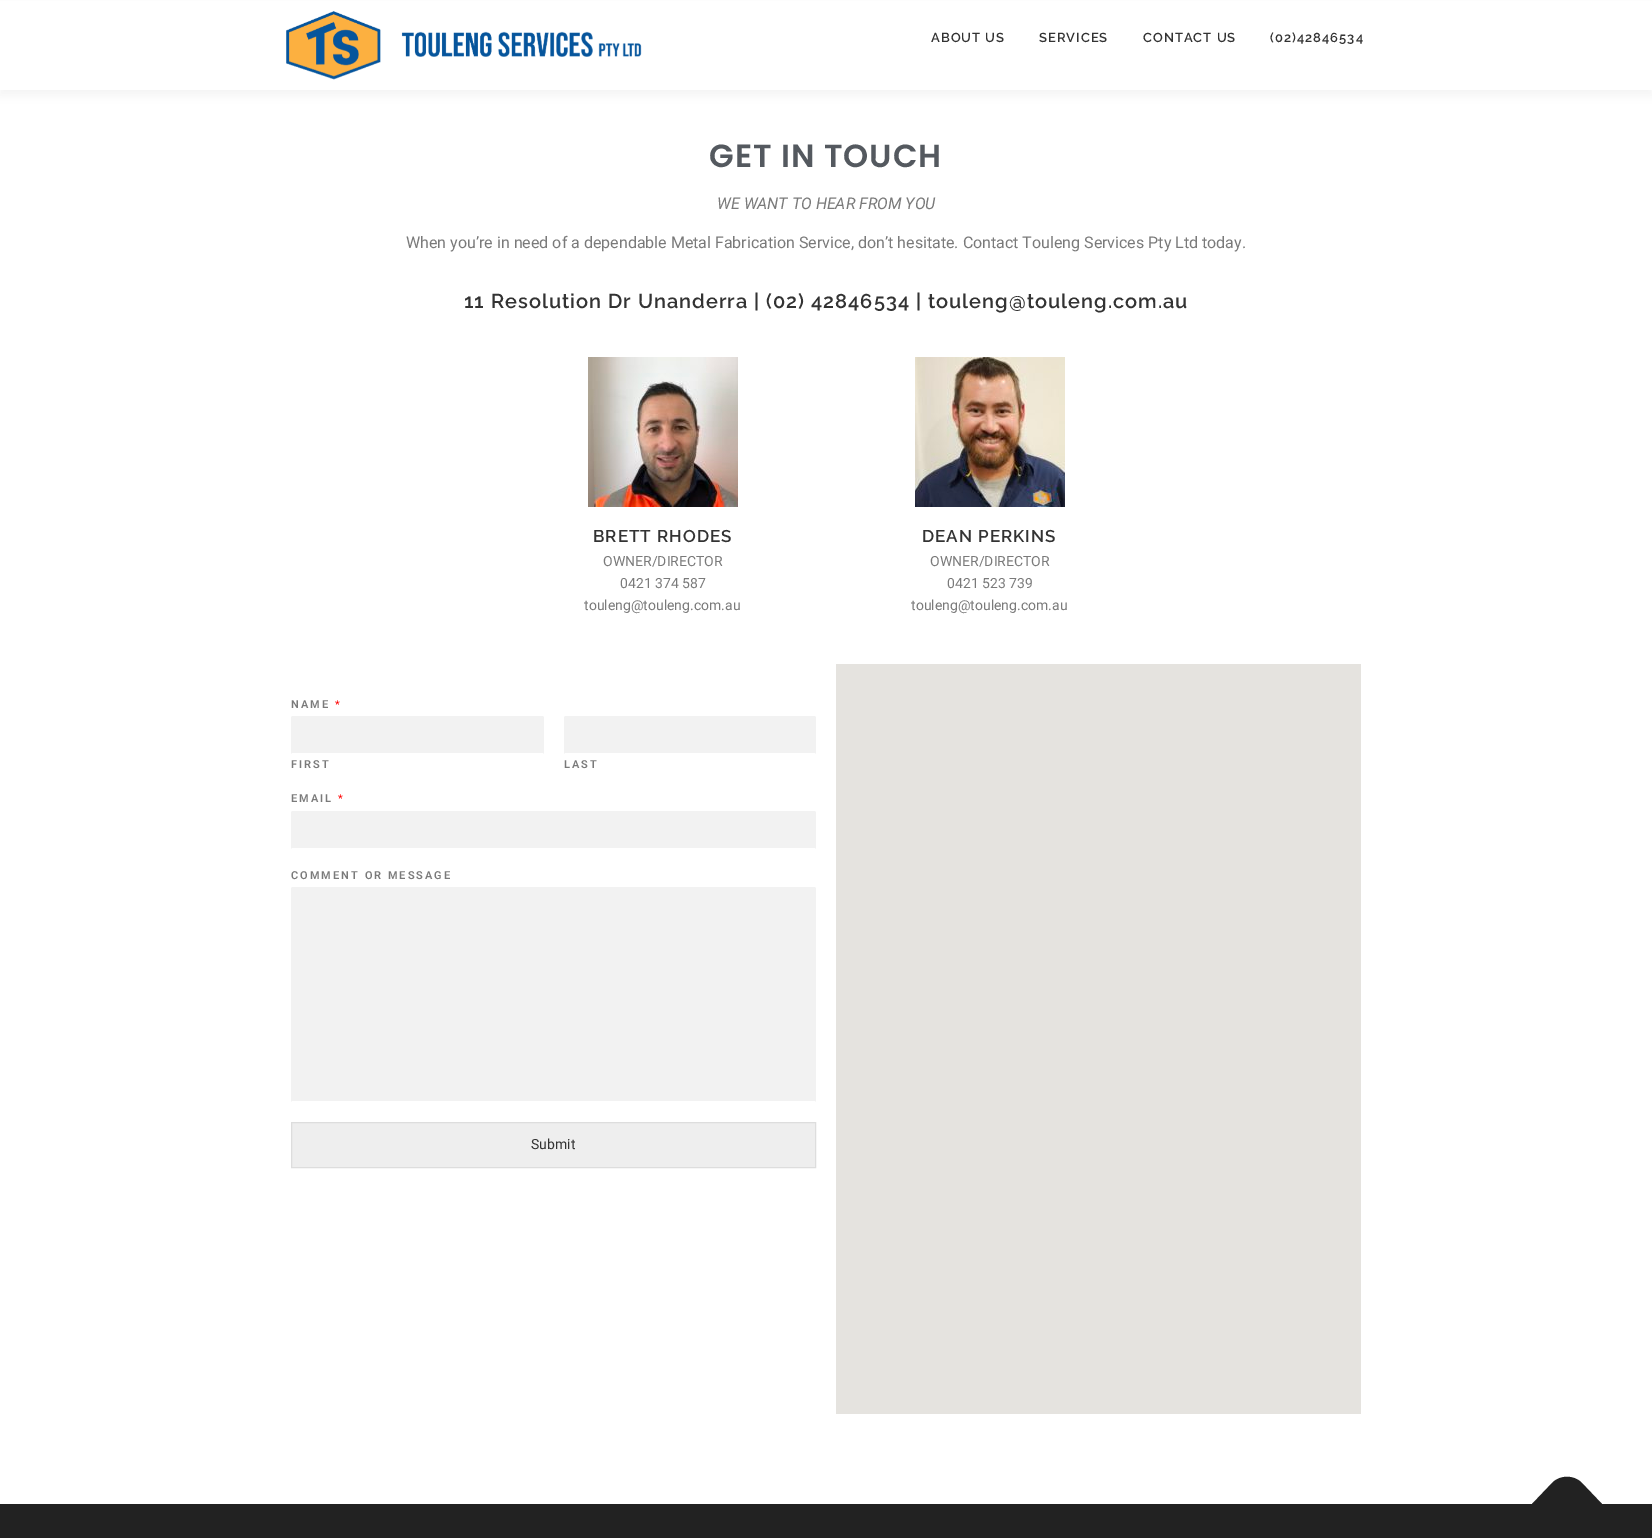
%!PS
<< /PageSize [1652 1538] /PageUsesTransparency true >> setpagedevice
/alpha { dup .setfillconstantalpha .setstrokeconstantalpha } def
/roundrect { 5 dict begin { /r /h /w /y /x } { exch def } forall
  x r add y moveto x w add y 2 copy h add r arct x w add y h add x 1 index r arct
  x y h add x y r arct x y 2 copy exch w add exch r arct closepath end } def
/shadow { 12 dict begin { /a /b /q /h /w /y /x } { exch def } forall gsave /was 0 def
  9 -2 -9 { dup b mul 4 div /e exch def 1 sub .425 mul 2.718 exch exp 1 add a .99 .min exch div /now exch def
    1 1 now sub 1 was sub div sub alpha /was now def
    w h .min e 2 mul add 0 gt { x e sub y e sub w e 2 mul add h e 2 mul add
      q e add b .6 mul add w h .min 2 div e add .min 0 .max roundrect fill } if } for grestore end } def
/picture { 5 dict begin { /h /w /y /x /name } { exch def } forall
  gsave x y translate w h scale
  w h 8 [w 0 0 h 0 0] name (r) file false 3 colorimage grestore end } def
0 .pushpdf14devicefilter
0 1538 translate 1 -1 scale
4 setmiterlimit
1 setgray
0 0 1652 1538 rectfill
0.196 setgray
0 5 1652 90 0 5 0.06 shadow
1 setgray
0 1 1652 89 rectfill
(img1.rgb) 286 11 356 69 picture
/Raleway-SemiBold [13 0 0 -13 0 0] selectfont
0.2 setgray
931 42 moveto 1 0 (ABOUT US) ashow
1039 42 moveto 1 0 (SERVICES) ashow
1143 42 moveto 1 0 (CONTACT US) ashow
1270 42 moveto 1 0 (\(02\)42846534) ashow
/Poppins-SemiBold [32 0 0 -32 0 0] selectfont
0.329 0.349 0.373 setrgbcolor
709 167 moveto 1 0 (GET IN TOUCH) ashow
/Roboto-Italic [16 0 0 -16 0 0] selectfont
0.478 setgray
717 209 moveto (WE WANT TO HEAR FROM YOU) show
/Roboto-Regular [16 0 0 -16 0 0] selectfont
406 248 moveto (When you’re in need of a dependable Metal Fabrication Service, don’t hesitate. Contact Touleng Services Pty Ltd today.) show
/Raleway-SemiBold [20 0 0 -20 0 0] selectfont
0.2 setgray
464 308 moveto 1 0 (11 Resolution Dr Unanderra | \(02\) 42846534 | touleng@touleng.com.au) ashow
(img2.rgb) 588 357 150 150 picture
/Raleway-SemiBold [17 0 0 -17 0 0] selectfont
593 542 moveto 1 0 (BRETT RHODES) ashow
/Roboto-Regular [14 0 0 -14 0 0] selectfont
0.478 setgray
603 566 moveto (OWNER/DIRECTOR) show
620 588 moveto (0421 374 587) show
584 610 moveto (touleng@touleng.com.au) show
(img3.rgb) 915 357 150 150 picture
/Raleway-SemiBold [17 0 0 -17 0 0] selectfont
0.2 setgray
922 542 moveto 1 0 (DEAN PERKINS) ashow
/Roboto-Regular [14 0 0 -14 0 0] selectfont
0.478 setgray
930 566 moveto (OWNER/DIRECTOR) show
947 588 moveto (0421 523 739) show
911 610 moveto (touleng@touleng.com.au) show
/Roboto-SemiBold [11 0 0 -11 0 0] selectfont
291 708 moveto 2 0 (NAME) ashow
/Roboto-Regular [11 0 0 -11 0 0] selectfont
1 0 0 setrgbcolor
335 708 moveto (*) show
0.949 setgray
291 716 253 38 2 roundrect fill
1 setgray
292 753 251 1 rectfill
/Roboto-SemiBold [11 0 0 -11 0 0] selectfont
0.478 setgray
291 768 moveto 2 0 (FIRST) ashow
0.949 setgray
564 716 252 38 2 roundrect fill
1 setgray
565 753 250 1 rectfill
0.478 setgray
564 768 moveto 2 0 (LAST) ashow
291 802 moveto 2 0 (EMAIL) ashow
/Roboto-Regular [11 0 0 -11 0 0] selectfont
1 0 0 setrgbcolor
338 802 moveto (*) show
0.949 setgray
291 811 525 38 2 roundrect fill
1 setgray
292 848 523 1 rectfill
/Roboto-SemiBold [11 0 0 -11 0 0] selectfont
0.478 setgray
291 879 moveto 2 0 (COMMENT OR MESSAGE) ashow
0.949 setgray
291 887 525 215 2 roundrect fill
1 setgray
292 1101 523 1 rectfill
0.933 setgray
newpath 291.5 1122.5 moveto 815.5 1122.5 lineto 815.5 1167.5 lineto 291.5 1167.5 lineto closepath gsave fill grestore
0.867 setgray
stroke
/Roboto-Regular [14 0 0 -14 0 0] selectfont
0.2 setgray
531 1149 moveto (Submit) show
0.898 0.89 0.875 setrgbcolor
836 664 525 750 rectfill
0.133 setgray
0 1504 1652 34 rectfill
newpath 1532 1504 moveto 1553 1482 lineto 1561 1475 1573 1475 1581 1482 curveto 1602 1504 lineto 1567 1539 lineto closepath fill
.poppdf14devicefilter showpage
